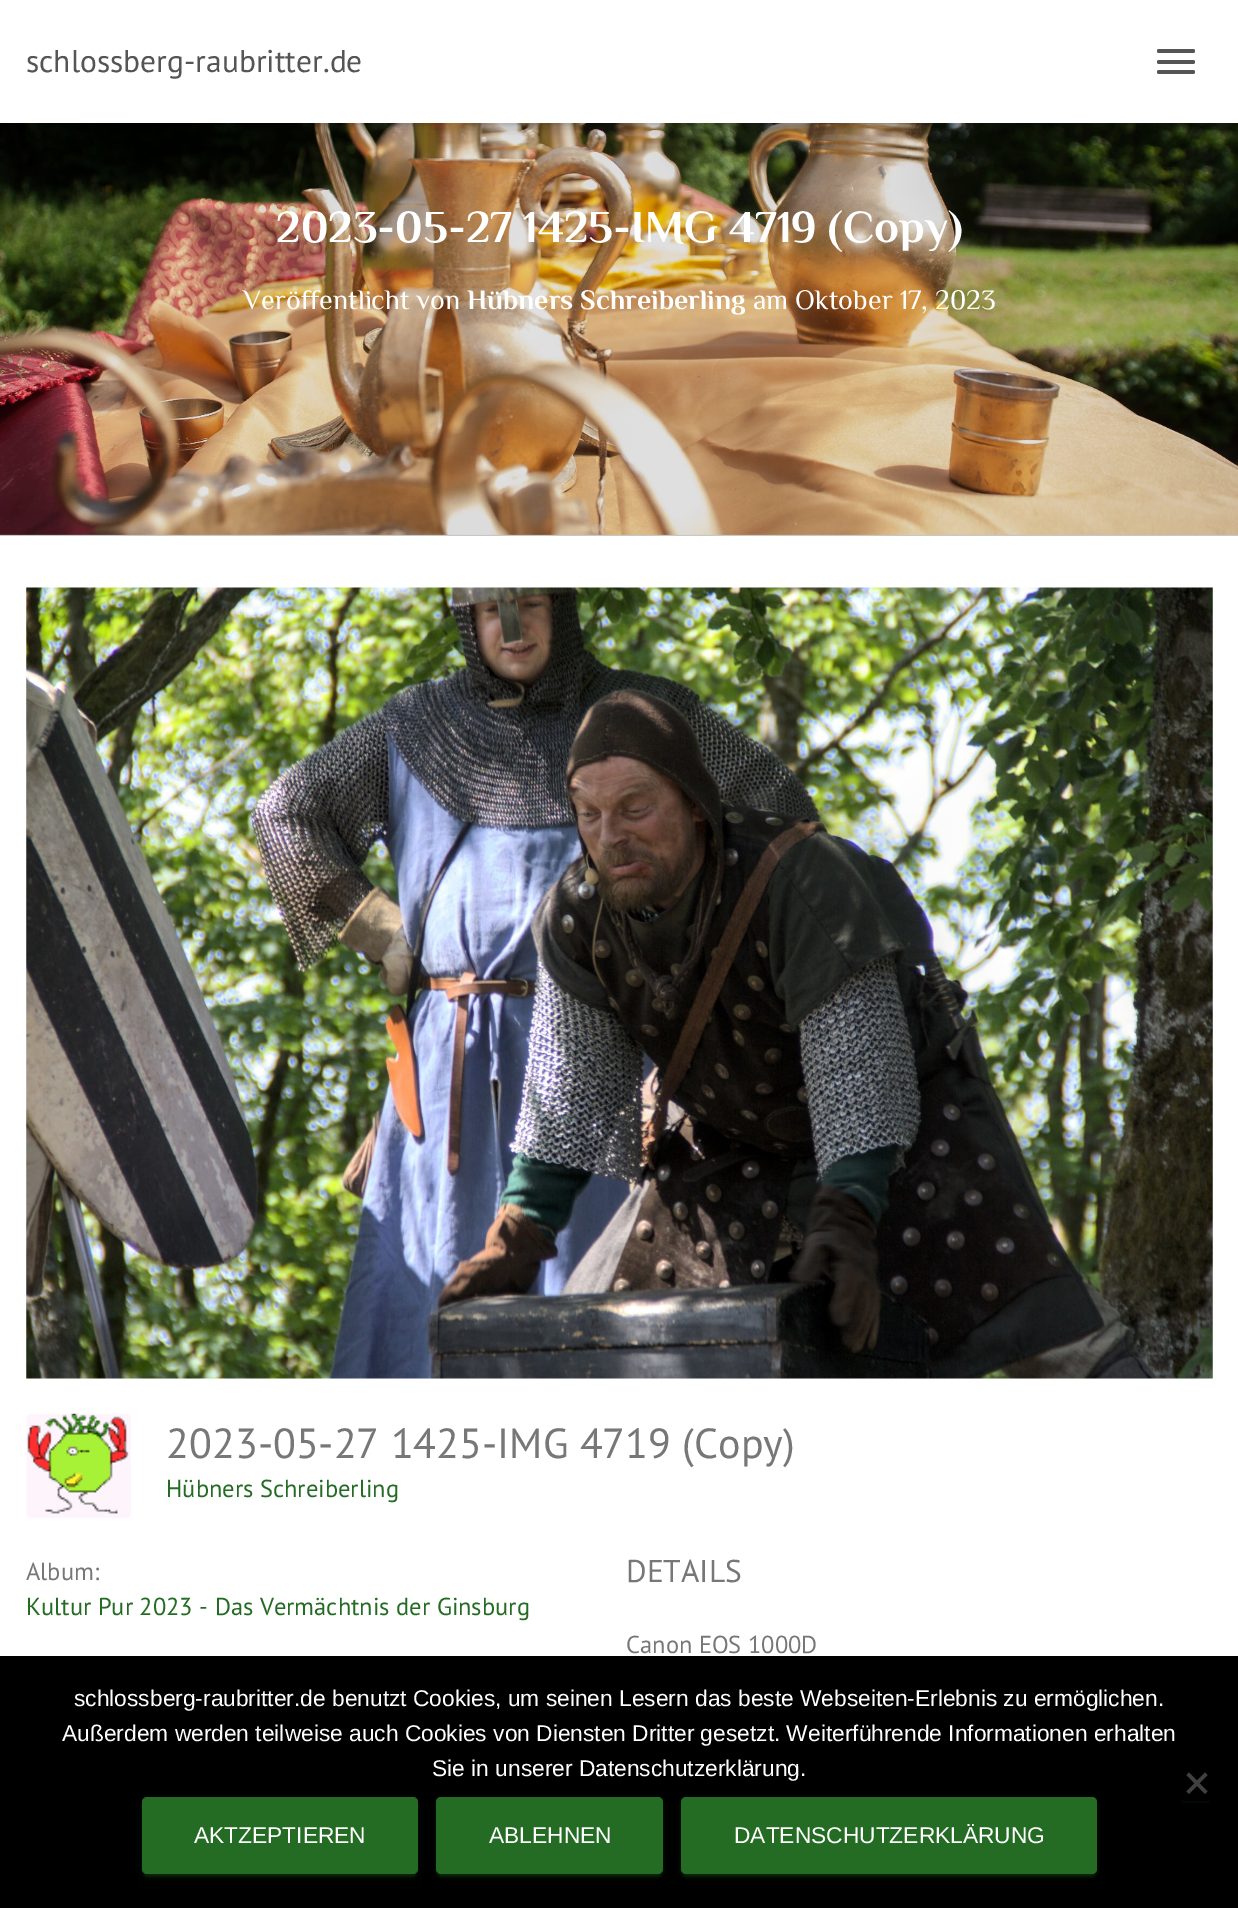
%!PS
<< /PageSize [1238 1908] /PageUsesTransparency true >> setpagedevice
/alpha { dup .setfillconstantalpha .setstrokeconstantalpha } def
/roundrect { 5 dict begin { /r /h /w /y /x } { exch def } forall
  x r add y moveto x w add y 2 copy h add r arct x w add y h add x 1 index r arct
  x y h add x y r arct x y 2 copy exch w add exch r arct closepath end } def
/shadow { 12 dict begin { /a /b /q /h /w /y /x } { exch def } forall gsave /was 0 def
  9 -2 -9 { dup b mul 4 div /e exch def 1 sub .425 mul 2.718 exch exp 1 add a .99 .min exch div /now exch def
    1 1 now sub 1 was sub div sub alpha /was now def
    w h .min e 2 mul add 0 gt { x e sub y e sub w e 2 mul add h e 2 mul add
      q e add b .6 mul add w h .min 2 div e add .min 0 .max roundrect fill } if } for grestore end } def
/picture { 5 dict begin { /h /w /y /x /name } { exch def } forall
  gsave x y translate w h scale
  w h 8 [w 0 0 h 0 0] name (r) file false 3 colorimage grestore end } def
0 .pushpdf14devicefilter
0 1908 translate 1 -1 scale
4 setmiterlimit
0.78 setgray
0 0 1238 1908 rectfill
(img1.rgb) 0 123 1238 412 picture
0 setgray
4 11 1232 115 0 4.5 0.1 shadow
0 2 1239 122 0 9 0.12 shadow
11 12 1218 102 0 9 0.42 shadow
1 setgray
0 0 1238 123 rectfill
/PTSans-Regular [31.5 0 0 -31.5 0 0] selectfont
0.333 setgray
26 72 moveto (schlossberg-raubritter.de) show
1157 49 38 4 2 roundrect fill
1157 60 38 4 2 roundrect fill
1157 70 38 4 2 roundrect fill
/ElMessiri-Bold [45.5 0 0 -45.5 0 0] selectfont
1 setgray
276 242 moveto (2023-05-27 1425-IMG 4719 \(Copy\)) show
/ElMessiri-Regular [28 0 0 -28 0 0] selectfont
243 309 moveto (Veröffentlicht von) show
/ElMessiri-Bold [28 0 0 -28 0 0] selectfont
467 309 moveto (Hübners Schreiberling) show
/ElMessiri-Regular [28 0 0 -28 0 0] selectfont
753 309 moveto (am Oktober 17, 2023) show
0 536 1238 1120 rectfill
(img2.rgb) 26 587 1187 792 picture
(img3.rgb) 26 1413 105 105 picture
/PTSans-Regular [42 0 0 -42 0 0] selectfont
0.467 setgray
166 1458 moveto (2023-05-27 1425-IMG 4719 \(Copy\)) show
/PTSans-Regular [24.5 0 0 -24.5 0 0] selectfont
0.141 0.42 0.141 setrgbcolor
166 1497 moveto (Hübners Schreiberling) show
0.467 setgray
26 1580 moveto (Album:) show
0.141 0.42 0.141 setrgbcolor
26 1615 moveto (Kultur Pur 2023 - Das Vermächtnis der Ginsburg) show
/PTSans-Regular [31.5 0 0 -31.5 0 0] selectfont
0.467 setgray
626 1582 moveto (DETAILS) show
/PTSans-Regular [24.5 0 0 -24.5 0 0] selectfont
626 1653 moveto (Canon EOS 1000D) show
0 setgray
0 1656 1238 252 rectfill
/LiberationSans-Regular [22.75 0 0 -22.75 0 0] selectfont
1 setgray
74 1706 moveto (schlossberg-raubritter.de benutzt Cookies, um seinen Lesern das beste Webseiten-Erlebnis zu ermöglichen.) show
62 1741 moveto (Außerdem werden teilweise auch Cookies von Diensten Dritter gesetzt. Weiterführende Informationen erhalten) show
432 1776 moveto (Sie in unserer Datenschutzerklärung.) show
gsave
newpath 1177 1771 moveto 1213 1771 lineto 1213 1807 lineto 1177 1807 lineto closepath 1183 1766 moveto 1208 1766 lineto 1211 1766 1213 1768 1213 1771 curveto 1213 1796 lineto 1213 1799 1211 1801 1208 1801 curveto 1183 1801 lineto 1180 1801 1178 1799 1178 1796 curveto 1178 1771 lineto 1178 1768 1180 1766 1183 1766 curveto closepath eoclip newpath
0.071 0.212 0.071 setrgbcolor
1181 1775 28 28 2 1 0.2 shadow
grestore
0.251 setgray
newpath 1205 1772.5 moveto 1207.5 1775 lineto 1189 1794 lineto 1186.5 1791.5 lineto closepath fill
newpath 1186.5 1775 moveto 1189 1772.5 lineto 1207.5 1791.5 lineto 1205 1794 lineto closepath fill
0.141 0.42 0.141 setrgbcolor
142 1799 276 77 5 4.5 0.12 shadow
145 1806 270 70 2 1 0.2 shadow
142 1801 276 77 5 2 0.14 shadow
142 1797 276 77 5 roundrect fill
1 setgray
194 1843 moveto (AKTZEPTIEREN) show
0.141 0.42 0.141 setrgbcolor
436 1799 227 77 5 4.5 0.12 shadow
439 1806 221 70 2 1 0.2 shadow
436 1801 227 77 5 2 0.14 shadow
436 1797 227 77 5 roundrect fill
1 setgray
489 1843 moveto (ABLEHNEN) show
0.141 0.42 0.141 setrgbcolor
681 1799 416 77 5 4.5 0.12 shadow
684 1806 410 70 2 1 0.2 shadow
681 1801 416 77 5 2 0.14 shadow
681 1797 416 77 5 roundrect fill
1 setgray
734 1843 moveto (DATENSCHUTZERKLÄRUNG) show
.poppdf14devicefilter showpage
